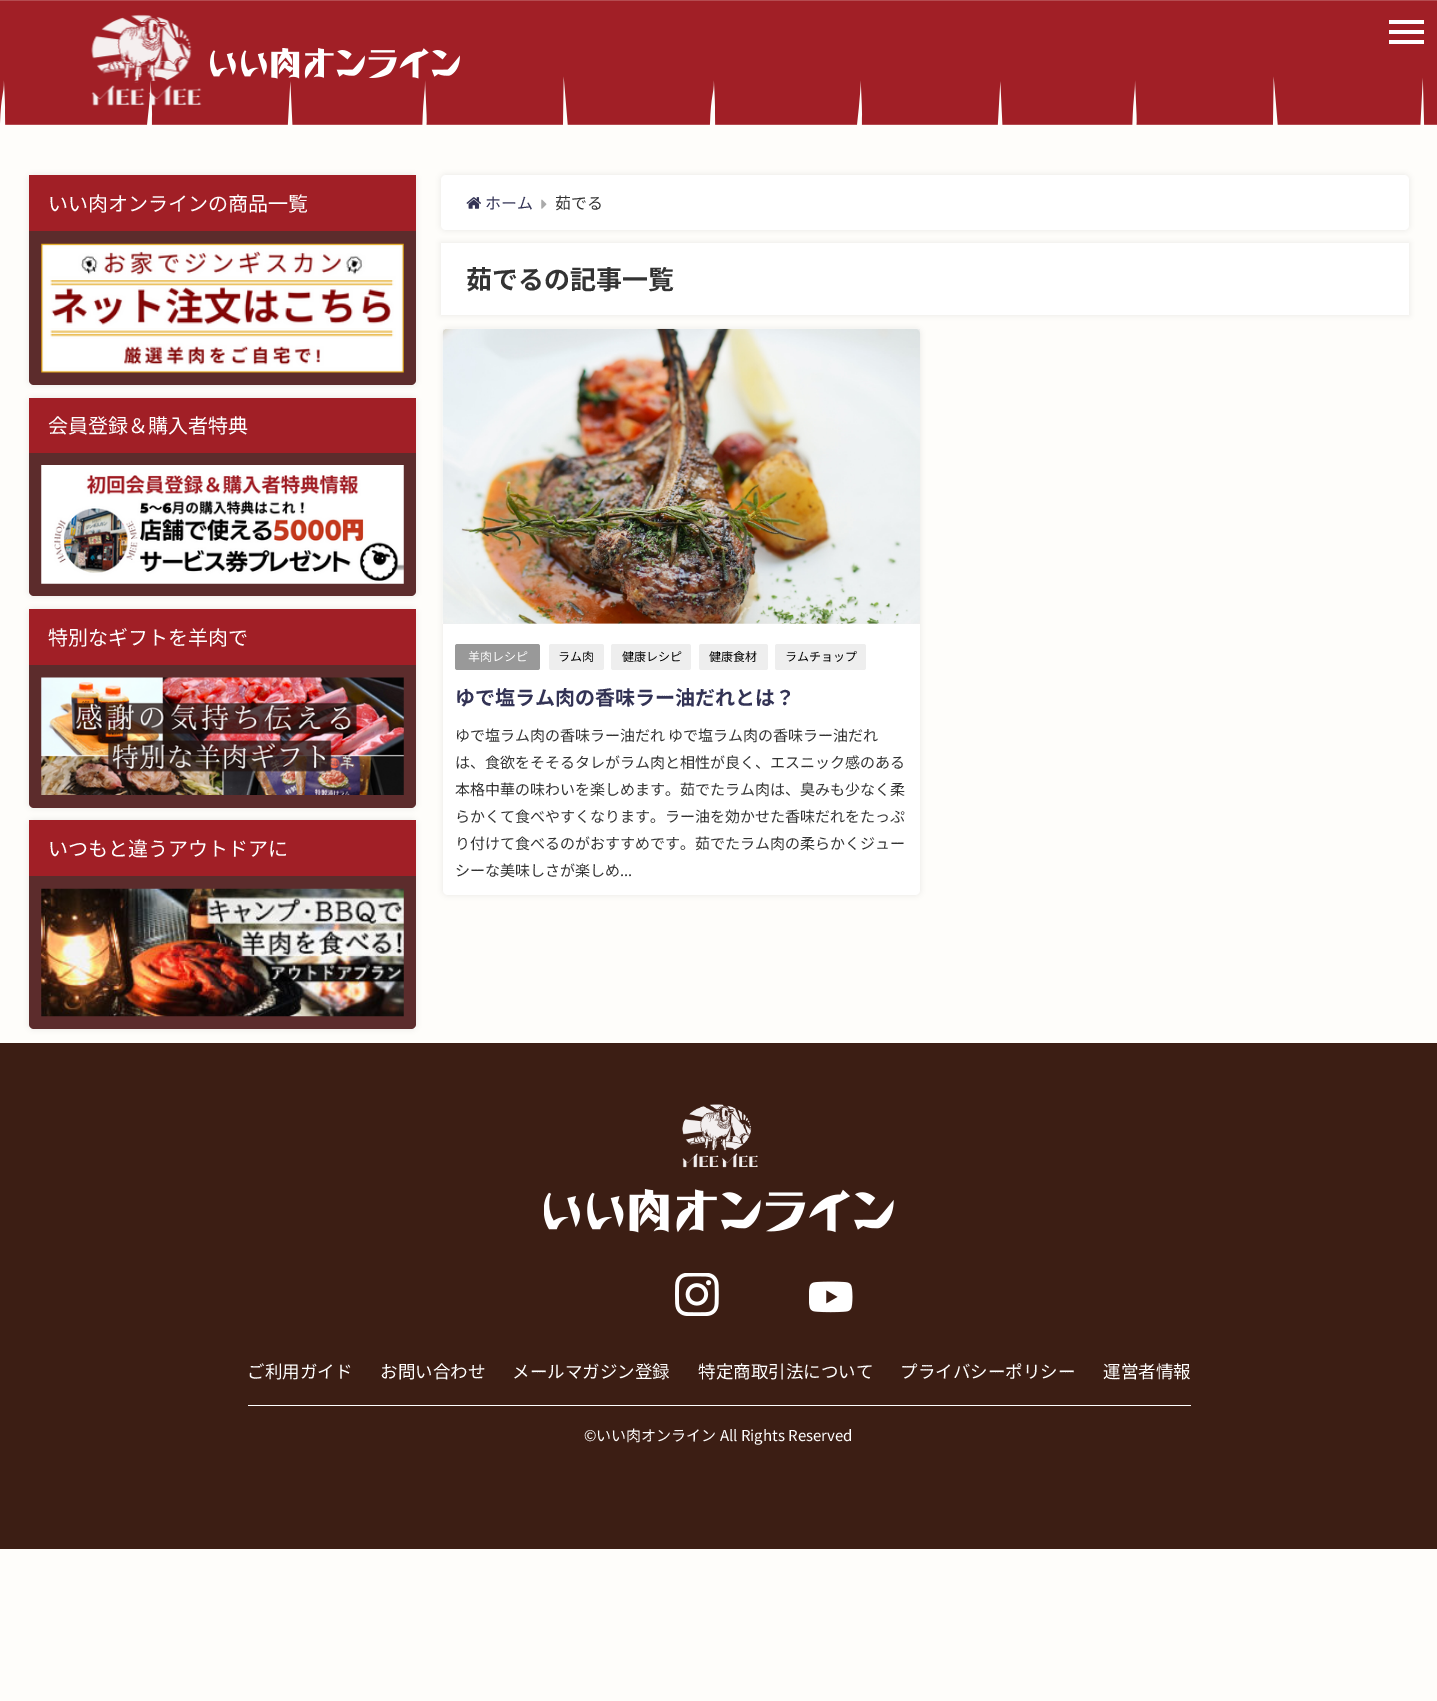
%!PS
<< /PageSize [1437 1701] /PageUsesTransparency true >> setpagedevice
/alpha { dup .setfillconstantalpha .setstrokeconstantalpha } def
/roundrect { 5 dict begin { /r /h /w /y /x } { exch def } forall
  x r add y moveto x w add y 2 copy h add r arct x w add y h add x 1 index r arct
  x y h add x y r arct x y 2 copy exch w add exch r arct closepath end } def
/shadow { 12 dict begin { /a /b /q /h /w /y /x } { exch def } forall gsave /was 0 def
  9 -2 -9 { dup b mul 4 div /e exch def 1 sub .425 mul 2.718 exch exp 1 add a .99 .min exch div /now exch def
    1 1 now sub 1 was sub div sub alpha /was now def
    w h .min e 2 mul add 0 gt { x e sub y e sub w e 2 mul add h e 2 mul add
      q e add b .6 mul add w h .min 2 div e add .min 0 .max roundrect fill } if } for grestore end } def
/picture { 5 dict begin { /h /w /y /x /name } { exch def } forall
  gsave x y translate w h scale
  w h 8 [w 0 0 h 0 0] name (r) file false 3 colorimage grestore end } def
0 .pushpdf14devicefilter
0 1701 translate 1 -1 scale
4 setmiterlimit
0.996 0.992 0.98 setrgbcolor
0 0 1437 1701 rectfill
(img1.rgb) 0 0 1437 125 picture
(img2.rgb) 91 14 111 92 picture
(img3.rgb) 210 48 250 31 picture
1 setgray
1389 20 35 4 rectfill
1389 30 35 4 rectfill
1389 40 35 4 rectfill
0.588 setgray
29 175 387 210 5 3 0.2 shadow
0.361 0.173 0.173 setrgbcolor
29 175 387 210 5 roundrect fill
0.631 0.122 0.149 setrgbcolor
29 175 387 56 rectfill
/NotoSansJP-Regular [20 0 0 -20 0 0] selectfont
1 setgray
48 211 moveto (いい肉オンラインの商品一覧) show
(img4.rgb) 41 243 363 130 picture
0.588 setgray
29 398 387 198 5 3 0.2 shadow
0.361 0.173 0.173 setrgbcolor
29 398 387 198 5 roundrect fill
0.631 0.122 0.149 setrgbcolor
29 398 387 55 rectfill
1 setgray
48 433 moveto (会員登録＆購入者特典) show
(img5.rgb) 41 465 363 119 picture
0.588 setgray
29 609 387 199 5 3 0.2 shadow
0.361 0.173 0.173 setrgbcolor
29 609 387 199 5 roundrect fill
0.631 0.122 0.149 setrgbcolor
29 609 387 56 rectfill
1 setgray
48 645 moveto (特別なギフトを羊肉で) show
(img6.rgb) 41 677 363 118 picture
0.588 setgray
29 820 387 209 5 3 0.2 shadow
0.361 0.173 0.173 setrgbcolor
29 820 387 209 5 roundrect fill
0.631 0.122 0.149 setrgbcolor
29 820 387 56 rectfill
1 setgray
48 856 moveto (いつもと違うアウトドアに) show
(img7.rgb) 41 888 363 129 picture
0.588 setgray
441 175 968 55 5 3 0.2 shadow
1 setgray
441 175 968 55 5 roundrect fill
(img8.rgb) 466 197 15 12 picture
/NotoSansJP-Regular [16 0 0 -16 0 0] selectfont
0.2 0.2 0.333 setrgbcolor
485 209 moveto (ホーム) show
(img9.rgb) 541 199 6 10 picture
0.2 setgray
555 209 moveto (茹でる) show
0.588 setgray
441 243 968 72 0 3 0.2 shadow
1 setgray
441 243 968 72 rectfill
/NotoSansJP-Bold [26 0 0 -26 0 0] selectfont
0.2 setgray
466 289 moveto (茹でるの記事一覧) show
0.588 setgray
443 329 477 566 5 3 0.2 shadow
1 setgray
443 329 477 566 5 roundrect fill
0.933 setgray
443 329 477 295 rectfill
(img10.rgb) 442 328 478 296 picture
0.6 setgray
455 644 85 26 2.5 roundrect fill
/NotoSansJP-Regular [12 0 0 -12 0 0] selectfont
1 setgray
468 661 moveto (羊肉レシピ) show
0.933 setgray
549 644 55 26 2.5 roundrect fill
0 setgray
558 661 moveto (ラム肉) show
0.933 setgray
611 644 80 26 2.5 roundrect fill
0 setgray
622 661 moveto (健康レシピ) show
0.933 setgray
699 644 69 26 2.5 roundrect fill
0 setgray
709 661 moveto (健康食材) show
0.933 setgray
775 644 91 26 2.5 roundrect fill
0 setgray
785 661 moveto (ラムチョップ) show
/NotoSansJP-Bold [20 0 0 -20 0 0] selectfont
0.2 0.2 0.333 setrgbcolor
455 705 moveto (ゆで塩ラム肉の香味ラー油だれとは？) show
/NotoSansJP-Regular [15 0 0 -15 0 0] selectfont
0.2 setgray
455 741 moveto (ゆで塩ラム肉の香味ラー油だれ ゆで塩ラム肉の香味ラー油だれ) show
455 768 moveto (は、食欲をそそるタレがラム肉と相性が良く、エスニック感のある) show
455 795 moveto (本格中華の味わいを楽しめます。茹でたラム肉は、臭みも少なく柔) show
455 822 moveto (らかくて食べやすくなります。ラー油を効かせた香味だれをたっぷ) show
455 849 moveto (り付けて食べるのがおすすめです。茹でたラム肉の柔らかくジュー) show
455 876 moveto (シーな美味しさが楽しめ...) show
0.235 0.118 0.078 setrgbcolor
0 1043 1437 506 rectfill
(img11.rgb) 682 1104 76 64 picture
(img12.rgb) 544 1189 350 44 picture
(img13.rgb) 675 1273 44 43 picture
(img14.rgb) 809 1281 44 32 picture
1 setgray
248 1405 943 1 rectfill
/NotoSansJP-Regular [17.5 0 0 -17.5 0 0] selectfont
247 1378 moveto (ご利用ガイド) show
380 1378 moveto (お問い合わせ) show
512 1378 moveto (メールマガジン登録) show
698 1378 moveto (特定商取引法について) show
900 1378 moveto (プライバシーポリシー) show
1103 1378 moveto (運営者情報) show
/NotoSansJP-Regular [15 0 0 -15 0 0] selectfont
584 1441 moveto (©いい肉オンライン All Rights Reserved) show
.poppdf14devicefilter showpage
